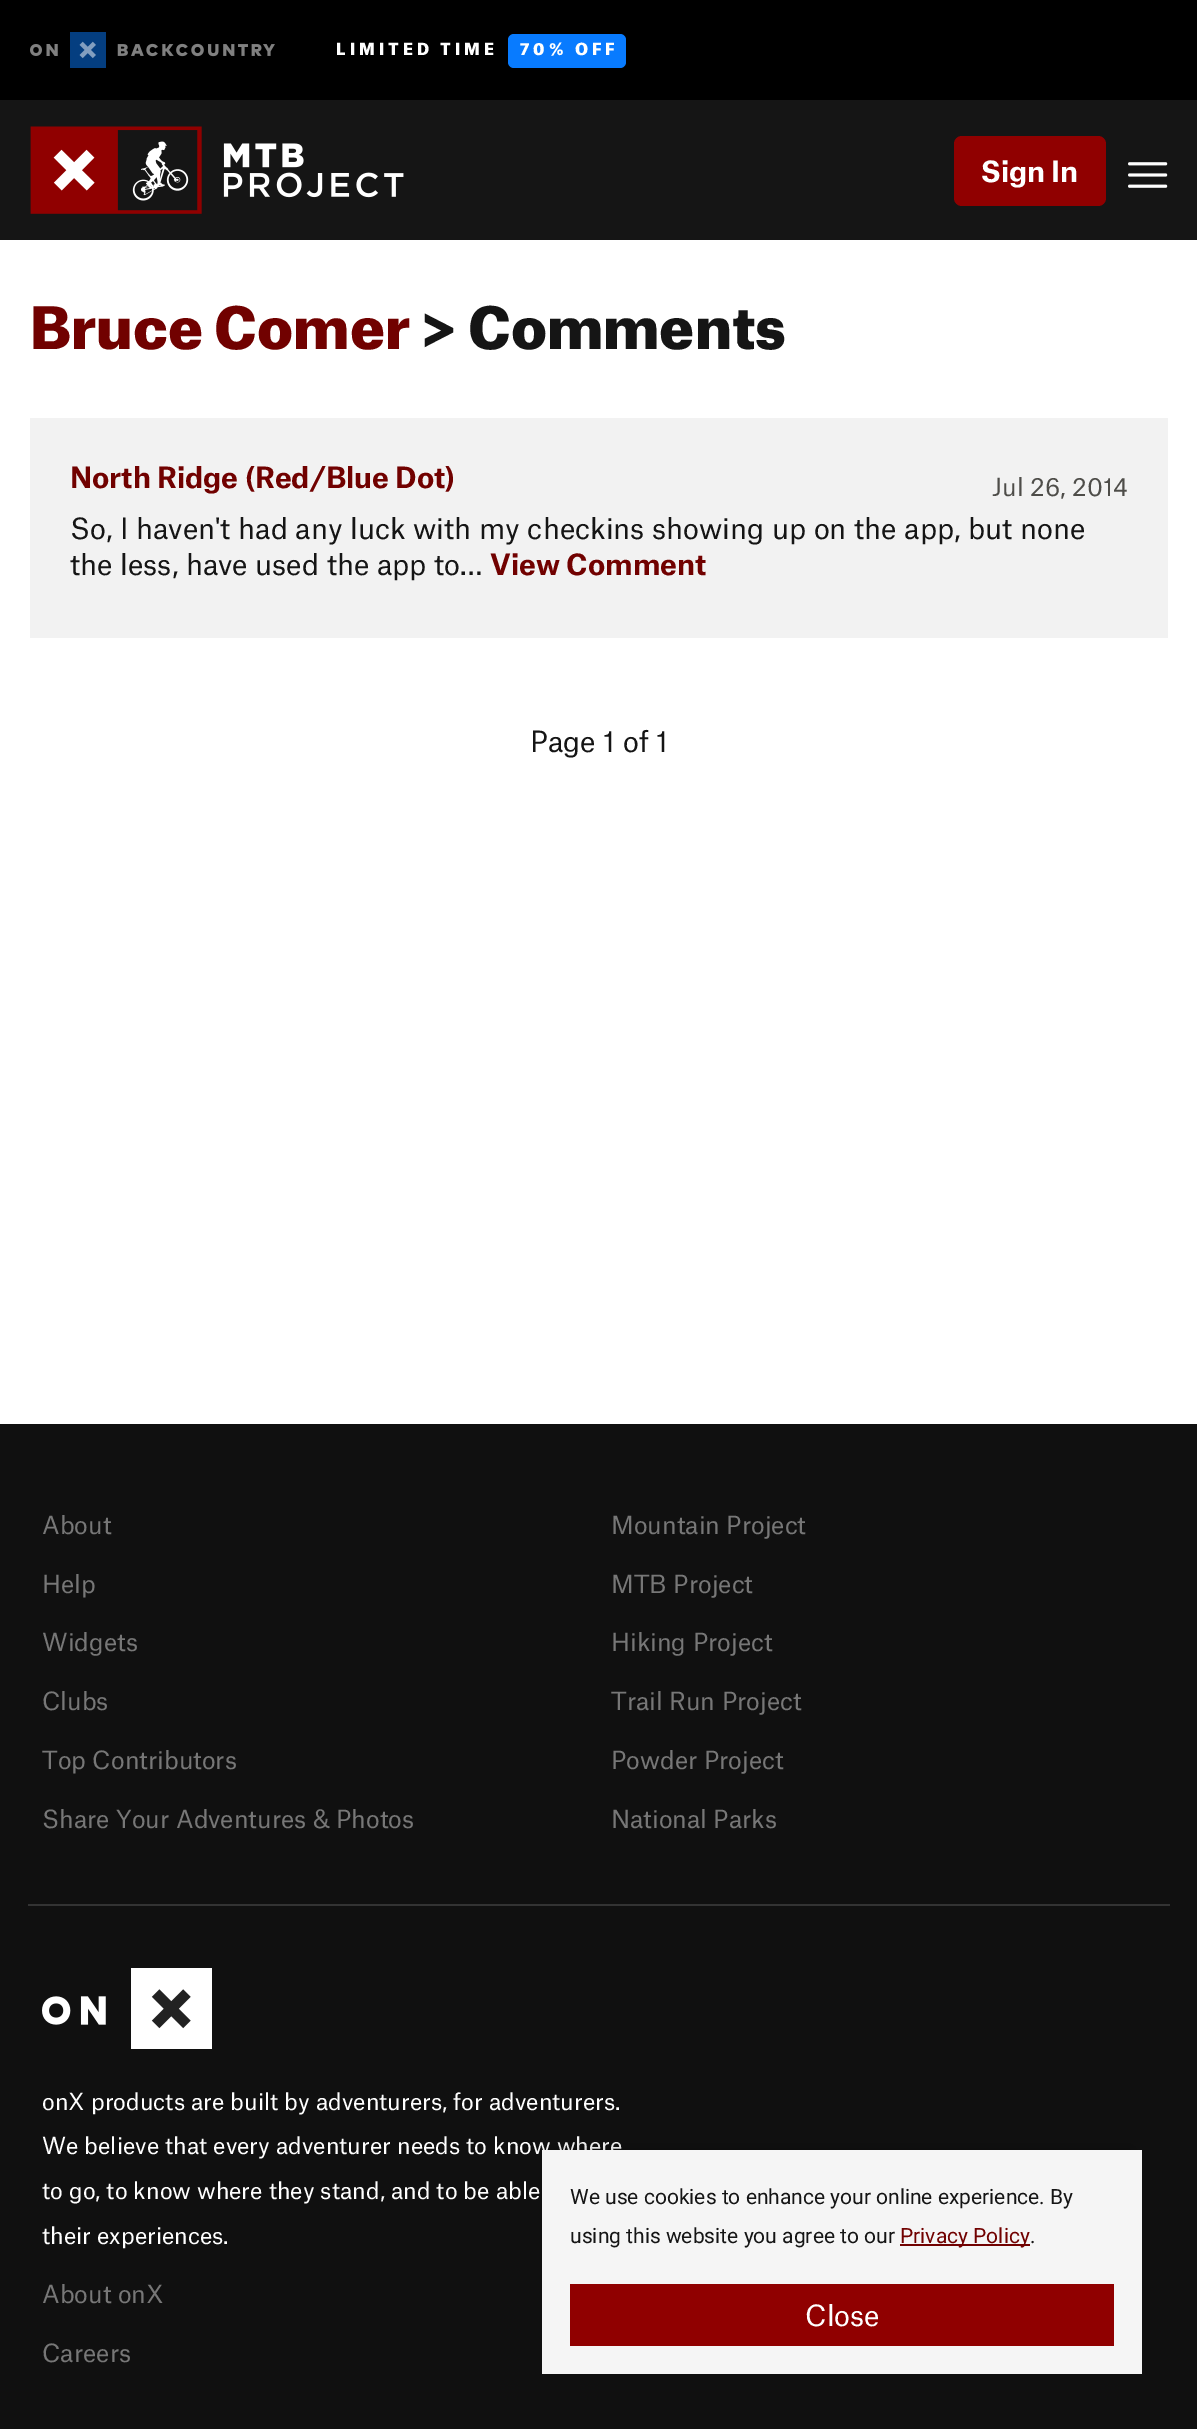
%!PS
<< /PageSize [1197 2429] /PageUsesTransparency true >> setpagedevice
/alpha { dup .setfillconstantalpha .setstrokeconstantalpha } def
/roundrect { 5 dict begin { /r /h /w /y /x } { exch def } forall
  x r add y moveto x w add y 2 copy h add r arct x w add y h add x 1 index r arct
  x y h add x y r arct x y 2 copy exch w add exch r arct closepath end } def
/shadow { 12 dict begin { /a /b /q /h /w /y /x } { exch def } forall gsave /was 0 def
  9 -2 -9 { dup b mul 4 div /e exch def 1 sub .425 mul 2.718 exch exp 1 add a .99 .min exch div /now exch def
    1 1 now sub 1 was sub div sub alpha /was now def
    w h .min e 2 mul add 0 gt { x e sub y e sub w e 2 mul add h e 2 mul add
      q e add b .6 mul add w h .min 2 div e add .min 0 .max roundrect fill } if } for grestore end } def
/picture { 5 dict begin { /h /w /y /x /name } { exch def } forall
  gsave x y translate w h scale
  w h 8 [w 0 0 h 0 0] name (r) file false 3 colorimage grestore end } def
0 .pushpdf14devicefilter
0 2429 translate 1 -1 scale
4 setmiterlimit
1 setgray
0 0 1197 2429 rectfill
0.082 setgray
0 100 1197 140 rectfill
0 setgray
0 0 1197 100 rectfill
(img1.rgb) 30 32 245 36 picture
/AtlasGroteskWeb-Black [16 0 0 -16 0 0] selectfont
1 setgray
336 55 moveto 4 0 (LIMITED TIME) ashow
0.031 0.482 1 setrgbcolor
508 34 118 34 6 roundrect fill
1 setgray
520 55 moveto 4 0 (70% OFF) ashow
(img2.rgb) 30 126 374 88 picture
0.565 0 0 setrgbcolor
954 136 152 70 8 roundrect fill
/AtlasGroteskWeb-Bold [28 0 0 -28 0 0] selectfont
1 setgray
981 182 moveto (Sign In) show
(img3.rgb) 1128 162 40 26 picture
/AtlasGroteskWeb-Black [56 0 0 -56 0 0] selectfont
0.443 0.004 0 setrgbcolor
30 349 moveto (Bruce Comer) show
0.082 setgray
421 349 moveto (> Comments) show
0.949 setgray
30 418 1138 220 rectfill
/AtlasGroteskWeb-Bold [28 0 0 -28 0 0] selectfont
0.443 0.004 0 setrgbcolor
70 488 moveto (North Ridge \(Red/Blue Dot\)) show
/AtlasGroteskWeb-Regular [24 0 0 -24 0 0] selectfont
0.306 0.302 0.286 setrgbcolor
992 496 moveto (Jul 26, 2014) show
/AtlasGroteskWeb-Regular [28 0 0 -28 0 0] selectfont
0.082 setgray
70 539 moveto (So, I haven't had any luck with my checkins showing up on the app, but none) show
70 575 moveto (the less, have used the app to…) show
/AtlasGroteskWeb-Bold [28 0 0 -28 0 0] selectfont
0.443 0.004 0 setrgbcolor
490 575 moveto (View Comment) show
/AtlasGroteskWeb-Regular [28 0 0 -28 0 0] selectfont
0.082 setgray
530 752 moveto (Page 1 of 1) show
0.063 setgray
0 1424 1197 1005 rectfill
0.2 setgray
28 1904 1142 2 rectfill
/AtlasGroteskWeb-Regular [24 0 0 -24 0 0] selectfont
0.467 setgray
42 1534 moveto (About) show
611 1534 moveto (Mountain Project) show
42 1593 moveto (Help) show
611 1593 moveto (MTB Project) show
42 1651 moveto (Widgets) show
611 1651 moveto (Hiking Project) show
42 1710 moveto (Clubs) show
611 1710 moveto (Trail Run Project) show
42 1769 moveto (Top Contributors) show
611 1769 moveto (Powder Project) show
42 1828 moveto (Share Your Adventures & Photos) show
611 1828 moveto (National Parks) show
(img4.rgb) 42 1968 170 81 picture
/AtlasGroteskWeb-Regular [22.4 0 0 -22.4 0 0] selectfont
1 setgray
42 2110 moveto (onX products are built by adventurers, for adventurers.) show
42 2154 moveto (We believe that every adventurer needs to know where) show
42 2199 moveto (to go, to know where they stand, and to be able) show
42 2244 moveto (their experiences.) show
/AtlasGroteskWeb-Regular [24 0 0 -24 0 0] selectfont
0.467 setgray
42 2303 moveto (About onX) show
42 2362 moveto (Careers) show
0 setgray
552 2150 580 204 0 10 0.25 shadow
0.961 setgray
542 2150 600 224 rectfill
/Roboto-Regular [21 0 0 -21 0 0] selectfont
0.082 setgray
570 2204 moveto (We use cookies to enhance your online experience. By) show
570 2243 moveto (using this website you agree to our) show
0.443 0.004 0 setrgbcolor
900 2244 130 2 rectfill
900 2243 moveto (Privacy Policy) show
0.082 setgray
1030 2243 moveto (.) show
0.565 0 0 setrgbcolor
570 2284 544 62 rectfill
/AtlasGroteskWeb-Regular [28 0 0 -28 0 0] selectfont
1 setgray
805 2326 moveto (Close) show
.poppdf14devicefilter showpage
